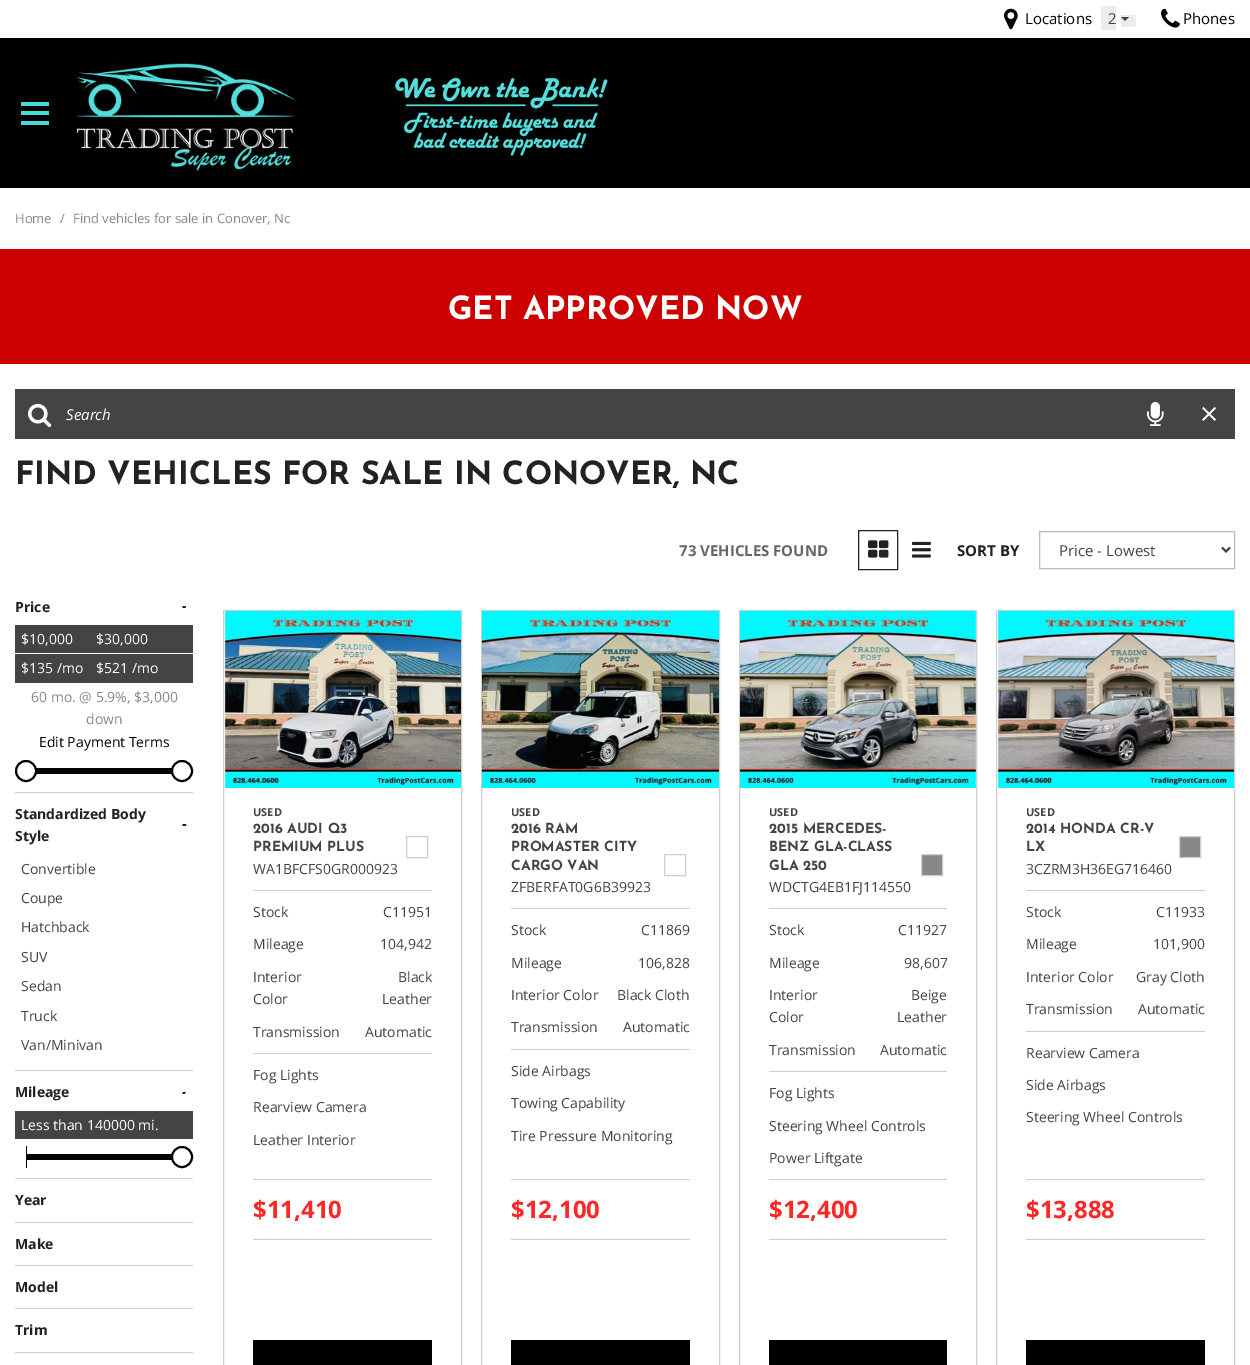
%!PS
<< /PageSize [1250 1365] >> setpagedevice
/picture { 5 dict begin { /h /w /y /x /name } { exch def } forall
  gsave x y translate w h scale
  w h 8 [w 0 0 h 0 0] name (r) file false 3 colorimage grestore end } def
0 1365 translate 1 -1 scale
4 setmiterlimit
1 setgray
0 0 1250 1365 rectfill
0 setgray
0 38 1250 150 rectfill
(img1.rgb) 1004 8 14 22 picture
/OpenSans-Regular [15 0 0 -15 0 0] selectfont
1025 24 moveto (Locations) show
0.925 setgray
newpath 1104 6 moveto 1116 6 lineto 1116 30 lineto 1104 30 lineto 1102.5 30 1101 28.5 1101 27 curveto 1101 9 lineto 1101 7.5 1102.5 6 1104 6 curveto closepath fill
newpath 1121 15 moveto 1133 15 lineto 1134.5 15 1136 16.5 1136 18 curveto 1136 24 lineto 1136 25.5 1134.5 27 1133 27 curveto 1121 27 lineto closepath fill
0.267 setgray
1108 24 moveto (2) show
newpath 1121 17 moveto 1129 17 lineto 1125 21 lineto closepath fill
(img2.rgb) 1161 8 19 20 picture
0 setgray
1183 24 moveto (Phones) show
0.278 0.851 0.835 setrgbcolor
21 102 28 4 rectfill
21 111 28 4 rectfill
21 121 28 4 rectfill
(img3.rgb) 76 63 220 108 picture
(img4.rgb) 395 77 213 79 picture
/OpenSans-Regular [13 0 0 -13 0 0] selectfont
0.533 setgray
15 223 moveto (Home) show
60 223 moveto (/) show
73 223 moveto (Find vehicles for sale in Conover, Nc) show
0.8 0 0 setrgbcolor
0 249 1250 115 rectfill
/JosefinSans-Bold [32 0 0 -32 0 0] selectfont
1 setgray
448 319 moveto (GET APPROVED NOW) show
0.267 setgray
15 389 1220 50 rectfill
(img5.rgb) 28 403 24 25 picture
/OpenSans-Italic [15 0 0 -15 0 0] selectfont
1 setgray
66 420 moveto (Search) show
(img6.rgb) 1147 402 17 24 picture
(img7.rgb) 1202 407 15 14 picture
/JosefinSans-Bold [32 0 0 -32 0 0] selectfont
0.133 setgray
15 484 moveto (FIND VEHICLES FOR SALE IN CONOVER, NC) show
/OpenSans-Bold [14 0 0 -14 0 0] selectfont
15 612 moveto (Price) show
/OpenSans-Bold [15 0 0 -15 0 0] selectfont
182 611 moveto (-) show
1 setgray
2.6 setlinewidth
newpath 181 606 6.5 0 360 arc closepath stroke
0.267 setgray
15 625 178 28 rectfill
/OpenSans-Regular [14 0 0 -14 0 0] selectfont
1 setgray
21 644 moveto ($10,000) show
96 644 moveto ($30,000) show
0.267 setgray
15 654 178 29 rectfill
1 setgray
21 673 moveto ($135 /mo) show
96 673 moveto ($521 /mo) show
0.533 setgray
31 702 moveto (60 mo. @ 5.9%, $3,000) show
86 724 moveto (down) show
0 setgray
39 747 moveto (Edit Payment Terms) show
36 768 136 6 rectfill
1 setgray
newpath 26 771 10 0 360 arc closepath gsave fill grestore
0 setgray
2 setlinewidth
stroke
1 setgray
newpath 182 771 10 0 360 arc closepath gsave fill grestore
0 setgray
stroke
0.808 setgray
15 792 178 1 rectfill
/OpenSans-Bold [14 0 0 -14 0 0] selectfont
0.133 setgray
15 819 moveto (Standardized Body) show
15 841 moveto (Style) show
/OpenSans-Bold [15 0 0 -15 0 0] selectfont
182 829 moveto (-) show
/OpenSans-Regular [14 0 0 -14 0 0] selectfont
0.267 setgray
21 874 moveto (Convertible) show
21 903 moveto (Coupe) show
21 932 moveto (Hatchback) show
21 962 moveto (SUV) show
21 991 moveto (Sedan) show
21 1021 moveto (Truck) show
21 1050 moveto (Van/Minivan) show
0.808 setgray
15 1070 178 1 rectfill
/OpenSans-Bold [14 0 0 -14 0 0] selectfont
0.133 setgray
15 1097 moveto (Mileage) show
/OpenSans-Bold [15 0 0 -15 0 0] selectfont
182 1097 moveto (-) show
1 setgray
2.6 setlinewidth
newpath 181 1091 6.5 0 360 arc closepath stroke
0.267 setgray
15 1111 178 28 rectfill
/OpenSans-Regular [14 0 0 -14 0 0] selectfont
1 setgray
21 1130 moveto (Less than 140000 mi.) show
0 setgray
26 1154 146 6 rectfill
26 1146 1 22 rectfill
1 setgray
newpath 182 1157 10 0 360 arc closepath gsave fill grestore
0 setgray
2 setlinewidth
stroke
0.808 setgray
15 1178 178 1 rectfill
/OpenSans-Bold [14 0 0 -14 0 0] selectfont
0.133 setgray
15 1205 moveto (Year) show
0.808 setgray
15 1222 178 1 rectfill
0.133 setgray
15 1249 moveto (Make) show
0.808 setgray
15 1265 178 1 rectfill
0.133 setgray
15 1292 moveto (Model) show
0.808 setgray
15 1308 178 1 rectfill
0.133 setgray
15 1335 moveto (Trim) show
0.808 setgray
15 1352 178 1 rectfill
/OpenSans-Bold [15 0 0 -15 0 0] selectfont
0.4 setgray
679 556 moveto (73 VEHICLES FOUND) show
0.133 setgray
1 setlinewidth
858.5 530.5 39 39 rectstroke
(img8.rgb) 868 540 21 18 picture
(img9.rgb) 912 541 19 17 picture
957 556 moveto (SORT BY) show
0.733 setgray
1039.5 531.5 195 37 rectstroke
0.267 setgray
2 setlinewidth
newpath 1222 547.5 moveto 1226 551.5 lineto 1230 547.5 lineto stroke
/OpenSans-Regular [15 0 0 -15 0 0] selectfont
1059 556 moveto (Price - Lowest) show
0.808 setgray
1 setlinewidth
223.5 610.5 238 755 rectstroke
(img10.rgb) 224 611 237 177 picture
/OpenSans-Bold [11 0 0 -11 0 0] selectfont
0.267 setgray
253 816 moveto (USED) show
/JosefinSans-Bold [14 0 0 -14 0 0] selectfont
253 833 moveto (2016 AUDI Q3) show
253 851 moveto (PREMIUM PLUS) show
0.808 setgray
406.5 836.5 21 21 rectstroke
/OpenSans-Regular [14 0 0 -14 0 0] selectfont
0.267 setgray
253 874 moveto (WA1BFCFS0GR000923) show
0.808 setgray
253 890 179 1 rectfill
0.267 setgray
253 917 moveto (Stock) show
383 917 moveto (C11951) show
253 949 moveto (Mileage) show
380 949 moveto (104,942) show
253 982 moveto (Interior) show
253 1004 moveto (Color) show
398 982 moveto (Black) show
382 1004 moveto (Leather) show
253 1037 moveto (Transmission) show
365 1037 moveto (Automatic) show
0.808 setgray
253 1053 179 1 rectfill
0.267 setgray
253 1080 moveto (Fog Lights) show
253 1112 moveto (Rearview Camera) show
253 1145 moveto (Leather Interior) show
0.808 setgray
253 1179 179 1 rectfill
/OpenSans-Bold [24 0 0 -24 0 0] selectfont
1 0.149 0.149 setrgbcolor
253 1218 moveto ($11,410) show
0.808 setgray
253 1239 179 1 rectfill
0 setgray
253 1340 179 25 rectfill
0.808 setgray
481.5 610.5 238 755 rectstroke
(img11.rgb) 482 611 237 177 picture
/OpenSans-Bold [11 0 0 -11 0 0] selectfont
0.267 setgray
511 816 moveto (USED) show
/JosefinSans-Bold [14 0 0 -14 0 0] selectfont
511 833 moveto (2016 RAM) show
511 851 moveto (PROMASTER CITY) show
511 870 moveto (CARGO VAN) show
0.808 setgray
664.5 854.5 21 21 rectstroke
/OpenSans-Regular [14 0 0 -14 0 0] selectfont
0.267 setgray
511 892 moveto (ZFBERFAT0G6B39923) show
0.808 setgray
511 908 179 1 rectfill
0.267 setgray
511 935 moveto (Stock) show
641 935 moveto (C11869) show
511 968 moveto (Mileage) show
638 968 moveto (106,828) show
511 1000 moveto (Interior Color) show
617 1000 moveto (Black Cloth) show
511 1032 moveto (Transmission) show
623 1032 moveto (Automatic) show
0.808 setgray
511 1049 179 1 rectfill
0.267 setgray
511 1076 moveto (Side Airbags) show
511 1108 moveto (Towing Capability) show
511 1141 moveto (Tire Pressure Monitoring) show
0.808 setgray
511 1179 179 1 rectfill
/OpenSans-Bold [24 0 0 -24 0 0] selectfont
1 0.149 0.149 setrgbcolor
511 1218 moveto ($12,100) show
0.808 setgray
511 1239 179 1 rectfill
0 setgray
511 1340 179 25 rectfill
0.808 setgray
739.5 610.5 237 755 rectstroke
(img12.rgb) 740 611 236 177 picture
/OpenSans-Bold [11 0 0 -11 0 0] selectfont
0.267 setgray
769 816 moveto (USED) show
/JosefinSans-Bold [14 0 0 -14 0 0] selectfont
769 833 moveto (2015 MERCEDES-) show
769 851 moveto (BENZ GLA-CLASS) show
769 870 moveto (GLA 250) show
0.533 setgray
newpath 921.5 854.5 moveto 942.5 854.5 lineto 942.5 875.5 lineto 921.5 875.5 lineto closepath gsave fill grestore
0.808 setgray
stroke
/OpenSans-Regular [14 0 0 -14 0 0] selectfont
0.267 setgray
769 892 moveto (WDCTG4EB1FJ114550) show
0.808 setgray
769 908 178 1 rectfill
0.267 setgray
769 935 moveto (Stock) show
898 935 moveto (C11927) show
769 968 moveto (Mileage) show
904 968 moveto (98,607) show
769 1000 moveto (Interior) show
769 1022 moveto (Color) show
911 1000 moveto (Beige) show
897 1022 moveto (Leather) show
769 1055 moveto (Transmission) show
880 1055 moveto (Automatic) show
0.808 setgray
769 1071 178 1 rectfill
0.267 setgray
769 1098 moveto (Fog Lights) show
769 1131 moveto (Steering Wheel Controls) show
769 1163 moveto (Power Liftgate) show
0.808 setgray
769 1179 178 1 rectfill
/OpenSans-Bold [24 0 0 -24 0 0] selectfont
1 0.149 0.149 setrgbcolor
769 1218 moveto ($12,400) show
0.808 setgray
769 1239 178 1 rectfill
0 setgray
769 1340 178 25 rectfill
0.808 setgray
996.5 610.5 238 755 rectstroke
(img13.rgb) 997 611 237 177 picture
/OpenSans-Bold [11 0 0 -11 0 0] selectfont
0.267 setgray
1026 816 moveto (USED) show
/JosefinSans-Bold [14 0 0 -14 0 0] selectfont
1026 833 moveto (2014 HONDA CR-V) show
1026 851 moveto (LX) show
0.533 setgray
newpath 1179.5 836.5 moveto 1200.5 836.5 lineto 1200.5 857.5 lineto 1179.5 857.5 lineto closepath gsave fill grestore
0.808 setgray
stroke
/OpenSans-Regular [14 0 0 -14 0 0] selectfont
0.267 setgray
1026 874 moveto (3CZRM3H36EG716460) show
0.808 setgray
1026 890 179 1 rectfill
0.267 setgray
1026 917 moveto (Stock) show
1156 917 moveto (C11933) show
1026 949 moveto (Mileage) show
1153 949 moveto (101,900) show
1026 982 moveto (Interior Color) show
1136 982 moveto (Gray Cloth) show
1026 1014 moveto (Transmission) show
1138 1014 moveto (Automatic) show
0.808 setgray
1026 1031 179 1 rectfill
0.267 setgray
1026 1058 moveto (Rearview Camera) show
1026 1090 moveto (Side Airbags) show
1026 1122 moveto (Steering Wheel Controls) show
0.808 setgray
1026 1179 179 1 rectfill
/OpenSans-Bold [24 0 0 -24 0 0] selectfont
1 0.149 0.149 setrgbcolor
1026 1218 moveto ($13,888) show
0.808 setgray
1026 1239 179 1 rectfill
0 setgray
1026 1340 179 25 rectfill
showpage
